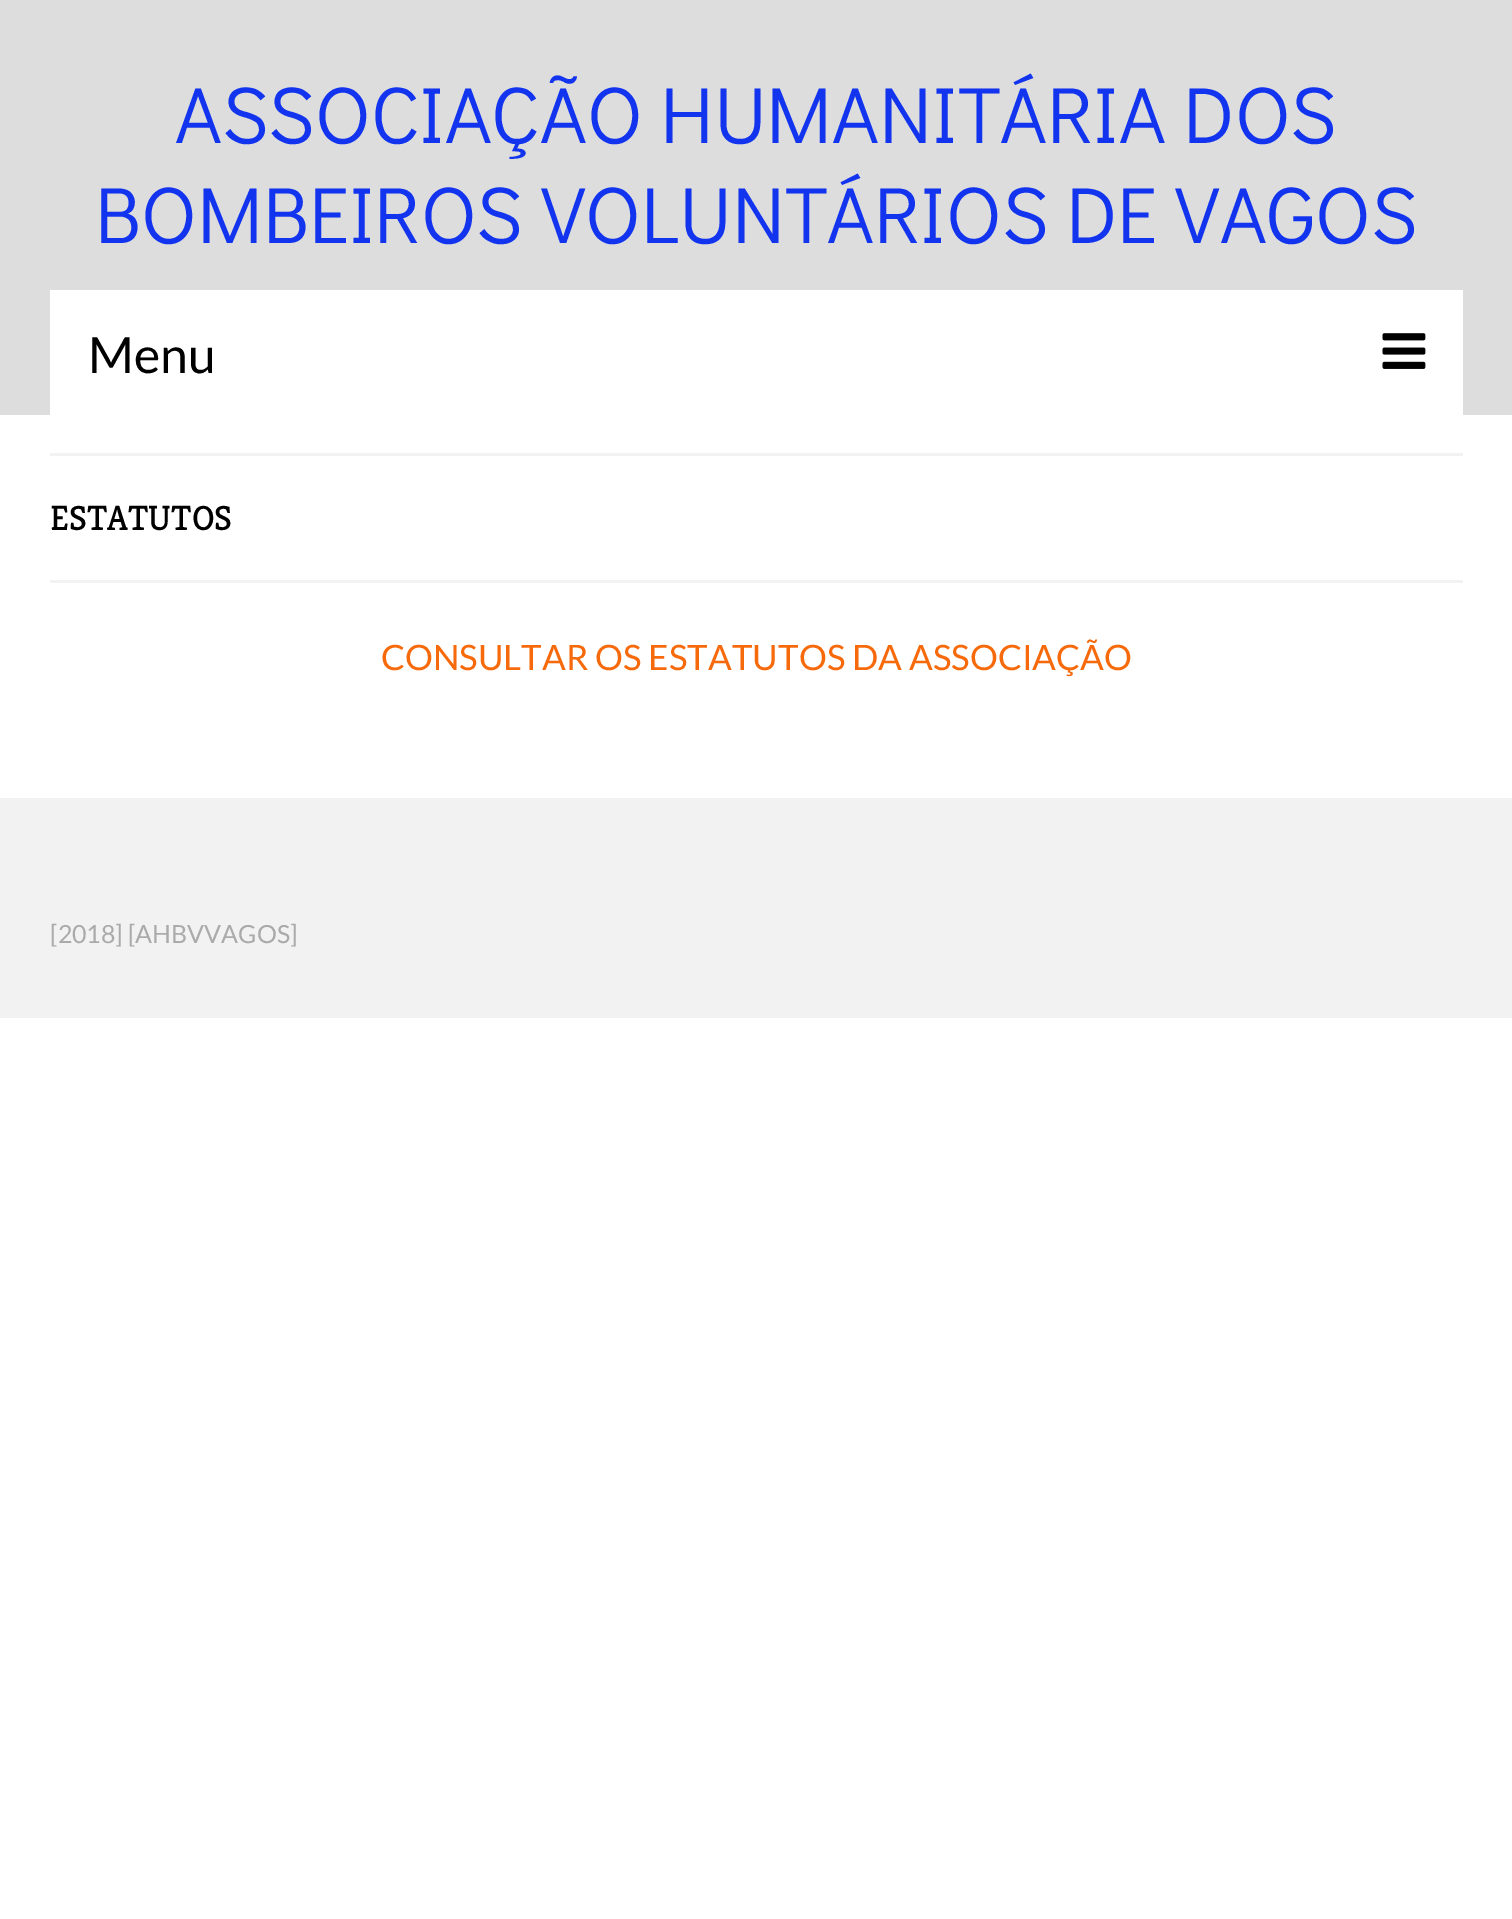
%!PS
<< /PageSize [1512 1919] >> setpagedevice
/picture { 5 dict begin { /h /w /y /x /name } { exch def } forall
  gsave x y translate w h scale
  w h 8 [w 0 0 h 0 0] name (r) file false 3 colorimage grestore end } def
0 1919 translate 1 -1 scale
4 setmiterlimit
1 setgray
0 0 1512 1919 rectfill
0.867 setgray
0 0 1512 415 rectfill
/DidactGothic-Regular [80 0 0 -80 0 0] selectfont
0.075 0.204 0.937 setrgbcolor
175 143 moveto (ASSOCIAÇÃO HUMANITÁRIA DOS) show
95 243 moveto (BOMBEIROS VOLUNTÁRIOS DE VAGOS) show
1 setgray
50 290 1413 125 rectfill
/Lato-Regular [50 0 0 -50 0 0] selectfont
0 setgray
88 373 moveto (Menu) show
(img1.rgb) 1382 333 44 36 picture
0.949 setgray
50 453 1413 3 rectfill
50 580 1413 3 rectfill
/Kreon-Light [35 0 0 -35 0 0] selectfont
0 setgray
50 530 moveto (ESTATUTOS) show
/Lato-Regular [35 0 0 -35 0 0] selectfont
0.969 0.416 0.047 setrgbcolor
381 670 moveto (CONSULTAR OS ESTATUTOS DA ASSOCIAÇÃO) show
0.949 setgray
0 798 1512 220 rectfill
/Lato-Regular [25 0 0 -25 0 0] selectfont
0.667 setgray
50 943 moveto ([2018] [AHBVVAGOS]) show
showpage
